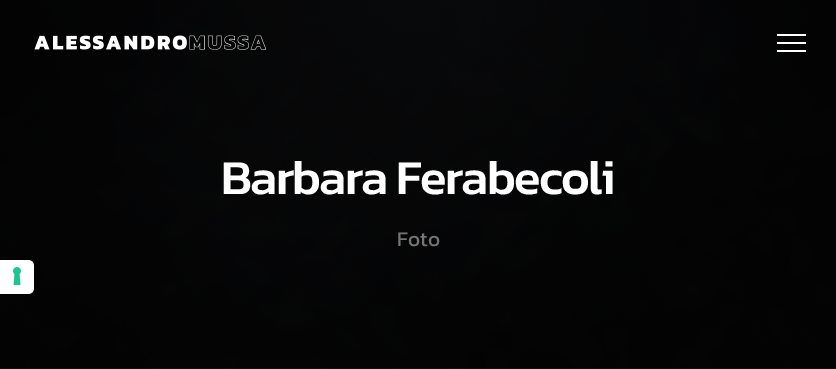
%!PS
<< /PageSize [836 369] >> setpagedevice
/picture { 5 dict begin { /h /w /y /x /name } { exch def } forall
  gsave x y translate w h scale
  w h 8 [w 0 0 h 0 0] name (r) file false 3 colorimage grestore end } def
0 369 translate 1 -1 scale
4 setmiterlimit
1 setgray
0 0 836 369 rectfill
(img2.rgb) 0 0 836 369 picture
(img1.rgb) 34 35 233 15 picture
777 42 29 2 rectfill
777 34 29 2 rectfill
777 50 29 2 rectfill
/Kanit-Medium [49 0 0 -49 0 0] selectfont
221 194 moveto -1.75 0 (Barbara Ferabecoli) ashow
/Kanit-Regular [21 0 0 -21 0 0] selectfont
0.459 setgray
397 246 moveto (Foto) show
1 setgray
newpath 0 260 moveto 28 260 lineto 31.5 260 34 262.5 34 266 curveto 34 288 lineto 34 291.5 31.5 294 28 294 curveto 0 294 lineto closepath fill
(img3.rgb) 13 267 8 18 picture
showpage
